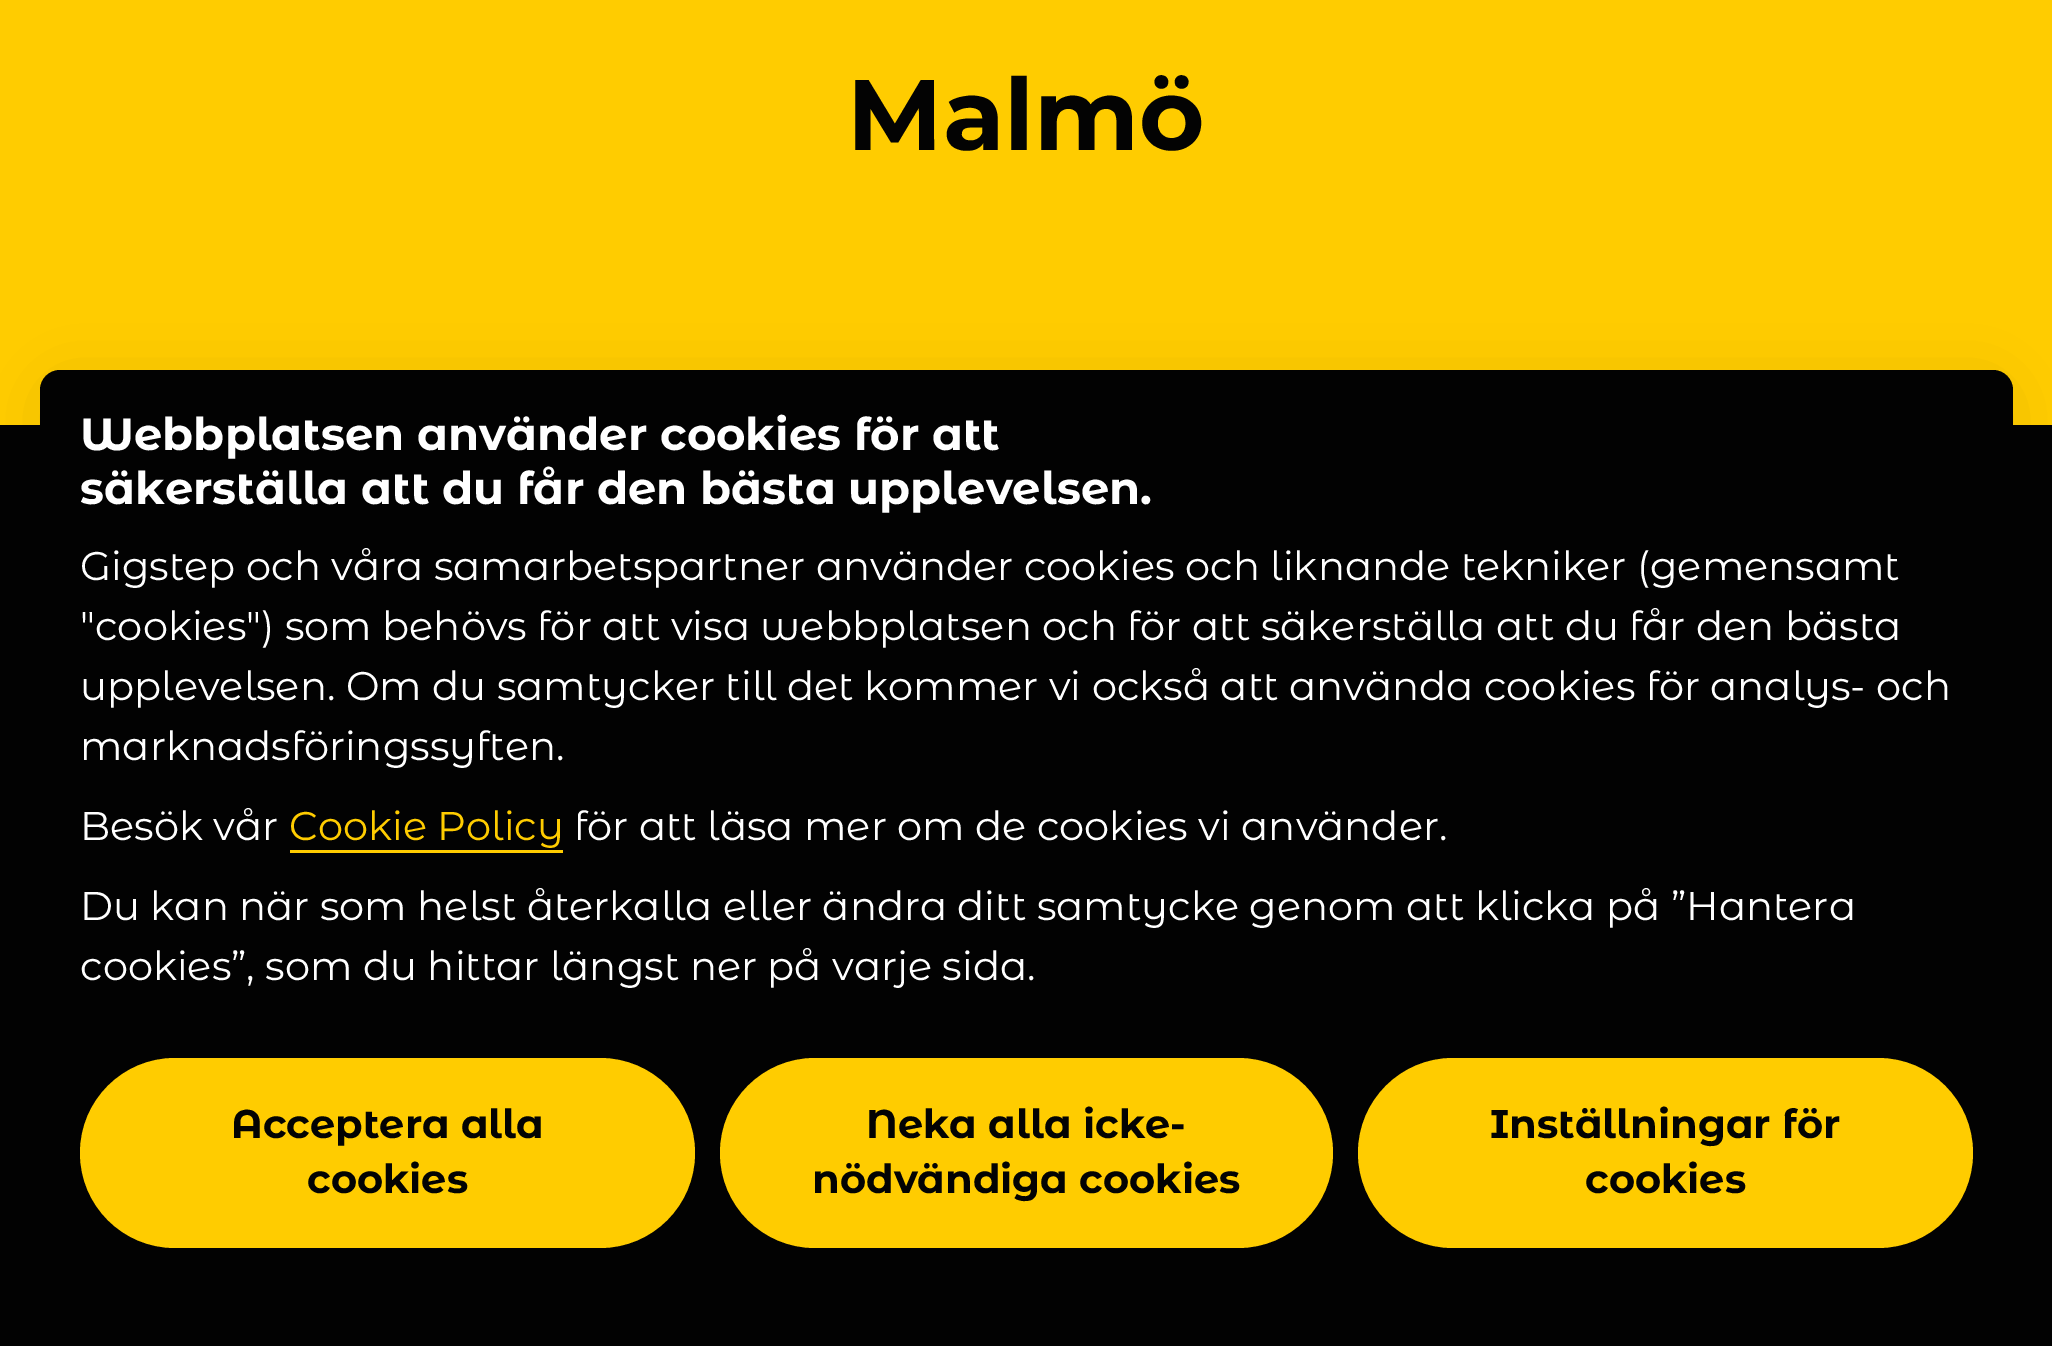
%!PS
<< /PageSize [2052 1346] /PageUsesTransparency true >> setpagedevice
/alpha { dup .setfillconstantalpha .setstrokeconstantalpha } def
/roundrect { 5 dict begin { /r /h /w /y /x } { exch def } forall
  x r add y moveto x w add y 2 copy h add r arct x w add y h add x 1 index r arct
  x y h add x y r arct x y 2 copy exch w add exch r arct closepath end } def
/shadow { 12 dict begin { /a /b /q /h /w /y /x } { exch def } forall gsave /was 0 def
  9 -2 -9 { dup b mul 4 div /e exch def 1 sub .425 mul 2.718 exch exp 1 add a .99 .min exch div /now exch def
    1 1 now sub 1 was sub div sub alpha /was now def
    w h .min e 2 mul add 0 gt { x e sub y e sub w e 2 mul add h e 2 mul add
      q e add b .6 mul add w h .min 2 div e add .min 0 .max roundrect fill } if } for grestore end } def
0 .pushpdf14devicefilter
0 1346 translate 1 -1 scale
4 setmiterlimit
0.008 setgray
0 0 2052 1346 rectfill
1 0.8 0 setrgbcolor
0 0 2052 425 rectfill
/Montserrat-Bold [100 0 0 -100 0 0] selectfont
0.012 setgray
847 150 moveto (Malmö) show
0 setgray
65 400 1923 888 0 34 0.18 shadow
0.008 setgray
40 370 1973 938 20 roundrect fill
/MontserratAlternates-Bold [45 0 0 -45 0 0] selectfont
1 setgray
80 450 moveto (Webbplatsen använder cookies för att) show
80 504 moveto (säkerställa att du får den bästa upplevelsen.) show
/MontserratAlternates-Regular [40 0 0 -40 0 0] selectfont
80 580 moveto (Gigstep och våra samarbetspartner använder cookies och liknande tekniker \(gemensamt) show
80 640 moveto ("cookies"\) som behövs för att visa webbplatsen och för att säkerställa att du får den bästa) show
80 700 moveto (upplevelsen. Om du samtycker till det kommer vi också att använda cookies för analys- och) show
80 760 moveto (marknadsföringssyften.) show
80 840 moveto (Besök vår) show
1 0.8 0 setrgbcolor
289 840 moveto (Cookie Policy) show
290 850 273 3 rectfill
1 setgray
574 840 moveto (för att läsa mer om de cookies vi använder.) show
80 920 moveto (Du kan när som helst återkalla eller ändra ditt samtycke genom att klicka på ”Hantera) show
80 980 moveto (cookies”, som du hittar längst ner på varje sida.) show
1 0.8 0 setrgbcolor
80 1058 615 190 95 roundrect fill
/MontserratAlternates-Bold [40 0 0 -40 0 0] selectfont
0.012 setgray
231 1138 moveto (Acceptera alla) show
307 1193 moveto (cookies) show
1 0.8 0 setrgbcolor
720 1058 613 190 95 roundrect fill
0.012 setgray
866 1138 moveto (Neka alla icke-) show
812 1193 moveto (nödvändiga cookies) show
1 0.8 0 setrgbcolor
1358 1058 615 190 95 roundrect fill
0.012 setgray
1490 1138 moveto (Inställningar för) show
1585 1193 moveto (cookies) show
.poppdf14devicefilter showpage
